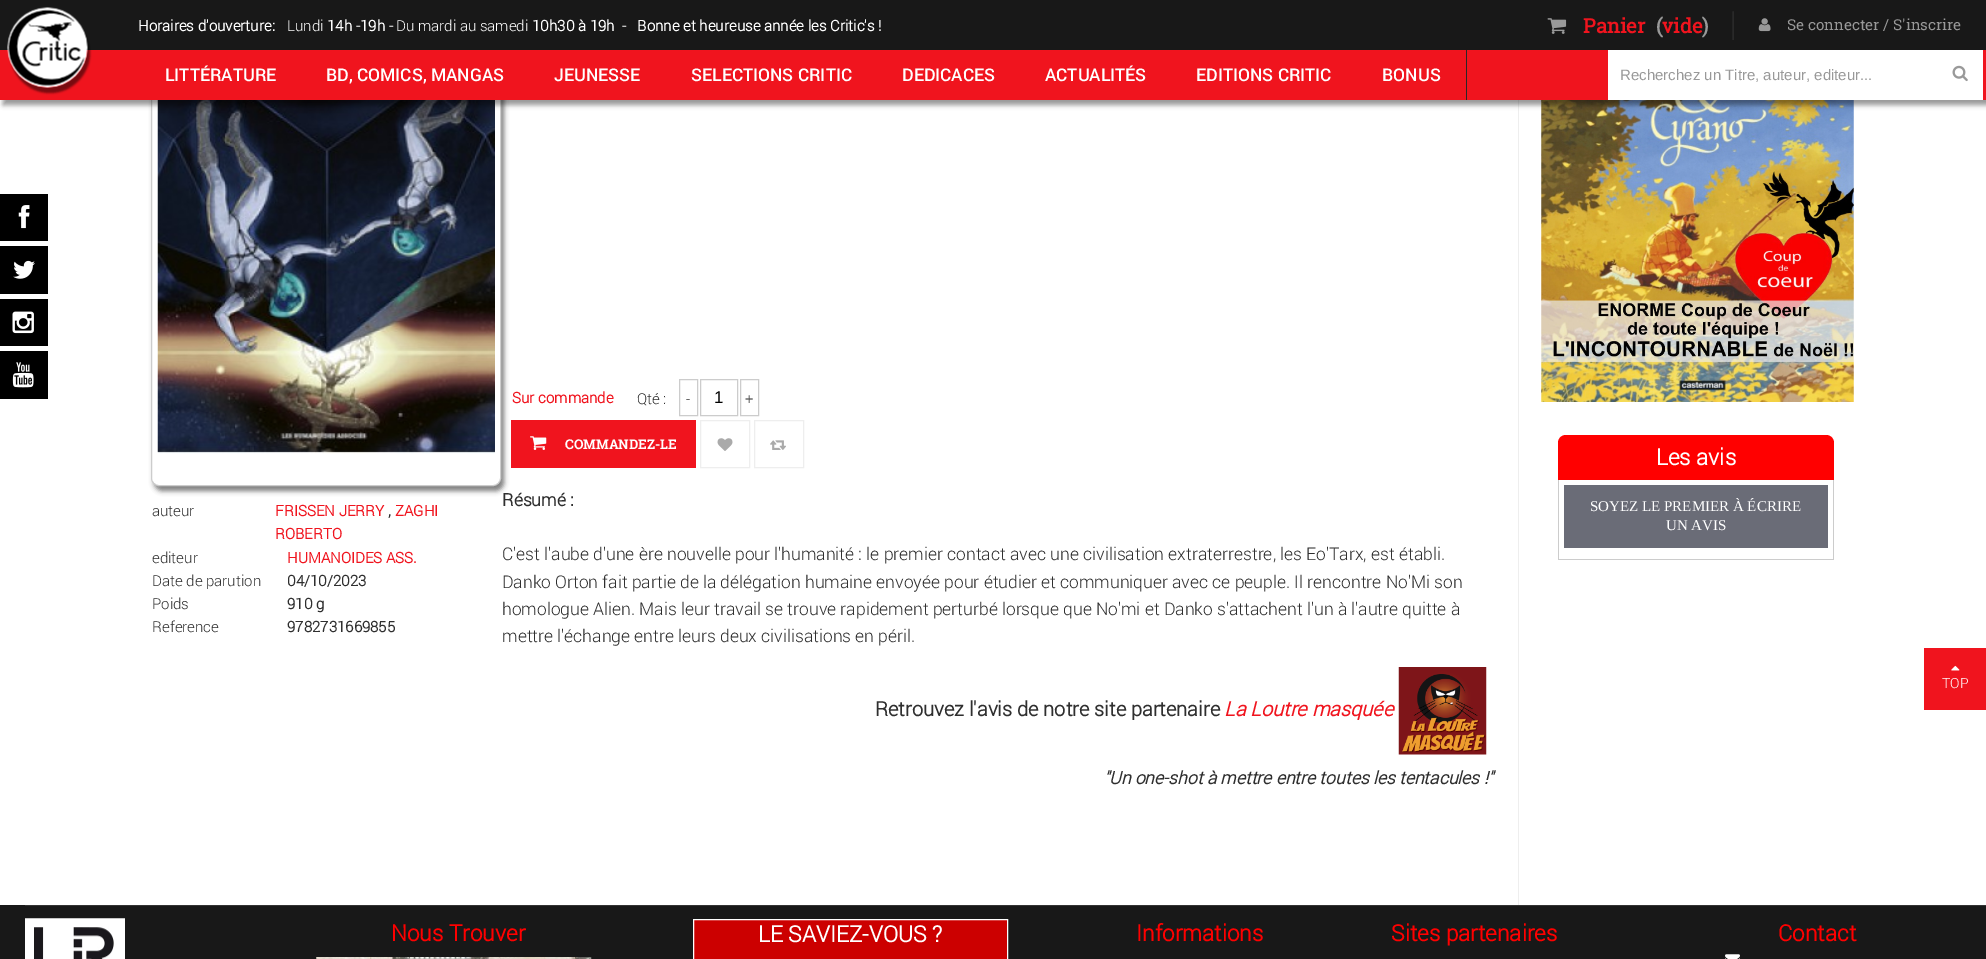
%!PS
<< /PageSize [1986 959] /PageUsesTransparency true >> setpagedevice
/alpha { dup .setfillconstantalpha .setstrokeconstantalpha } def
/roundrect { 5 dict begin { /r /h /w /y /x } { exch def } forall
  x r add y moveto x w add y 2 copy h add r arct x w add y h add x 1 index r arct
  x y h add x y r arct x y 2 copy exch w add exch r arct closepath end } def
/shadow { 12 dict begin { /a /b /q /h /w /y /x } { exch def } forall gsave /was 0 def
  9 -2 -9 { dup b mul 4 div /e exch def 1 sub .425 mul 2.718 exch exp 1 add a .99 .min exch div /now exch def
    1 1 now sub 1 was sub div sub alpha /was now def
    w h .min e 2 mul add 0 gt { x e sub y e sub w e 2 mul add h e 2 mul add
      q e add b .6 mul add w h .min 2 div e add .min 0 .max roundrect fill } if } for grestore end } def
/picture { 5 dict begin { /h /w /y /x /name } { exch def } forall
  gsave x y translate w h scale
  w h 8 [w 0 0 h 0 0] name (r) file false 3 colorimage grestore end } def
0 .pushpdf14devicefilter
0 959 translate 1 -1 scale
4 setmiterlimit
1 setgray
0 0 1986 959 rectfill
gsave
newpath 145 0 moveto 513 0 lineto 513 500 lineto 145 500 lineto closepath 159 -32 moveto 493 -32 lineto 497.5 -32 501 -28.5 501 -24 curveto 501 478 lineto 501 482.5 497.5 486 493 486 curveto 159 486 lineto 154.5 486 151 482.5 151 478 curveto 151 -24 lineto 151 -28.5 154.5 -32 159 -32 curveto closepath eoclip newpath
0 setgray
154 -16 350 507 8 2.5 0.5 shadow
grestore
0.8 setgray
151.5 -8.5 349 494 7.5 roundrect stroke
(img10.rgb) 157 100 338 354 picture
0.933 setgray
1518 100 1 805 rectfill
(img15.rgb) 1541 100 313 302 picture
0 setgray
3 5 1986 100 0 2.5 0.4 shadow
0.941 0.078 0.118 setrgbcolor
0 50 1986 50 rectfill
0.094 setgray
0 0 1986 50 rectfill
0 setgray
10 13 80 80 40 1 0.5 shadow
(img1.rgb) 7 7 81 81 picture
/Roboto-Bold [15 0 0 -15 0 0] selectfont
1 setgray
138 31 moveto (Horaires d'ouverture:) show
/Roboto-Light [15 0 0 -15 0 0] selectfont
287 31 moveto (Lundi) show
/Roboto-Bold [15 0 0 -15 0 0] selectfont
327 31 moveto (14h -19h -) show
/Roboto-Light [15 0 0 -15 0 0] selectfont
396 31 moveto (Du mardi au samedi) show
/Roboto-Bold [15 0 0 -15 0 0] selectfont
532 31 moveto (10h30 à 19h  -   Bonne et heureuse année les Critic's !) show
(img2.rgb) 1732 11 2 29 picture
(img3.rgb) 1547 18 20 16 picture
/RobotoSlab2-Bold [20 0 0 -20 0 0] selectfont
0.941 0.078 0.118 setrgbcolor
1583 33 moveto (Panier) show
0.6 setgray
1656 33 moveto (\() show
0.941 0.078 0.118 setrgbcolor
1662 33 moveto (vide) show
0.6 setgray
1702 33 moveto (\)) show
(img4.rgb) 1758 18 13 14 picture
/RobotoSlab-Regular [15 0 0 -15 0 0] selectfont
1787 30 moveto (Se connecter / S'inscrire) show
0.157 setgray
1466 50 1 50 rectfill
/Roboto-Medium [17.5 0 0 -17.5 0 0] selectfont
1 setgray
165 81 moveto (LITTÉRATURE) show
326 81 moveto (BD, COMICS, MANGAS) show
554 81 moveto (JEUNESSE) show
691 81 moveto (SELECTIONS CRITIC) show
902 81 moveto (DEDICACES) show
1045 81 moveto (ACTUALITÉS) show
1196 81 moveto (EDITIONS CRITIC) show
1382 81 moveto (BONUS) show
1608 50 375 50 rectfill
/LiberationSans-Regular [15 0 0 -15 0 0] selectfont
0.6 setgray
1620 80 moveto (Recherchez un Titre, auteur, editeur...) show
(img5.rgb) 1952 65 16 17 picture
0 setgray
0 194 48 47 rectfill
(img6.rgb) 18 205 12 24 picture
0 246 48 48 rectfill
(img7.rgb) 13 260 22 19 picture
0 299 48 47 rectfill
(img8.rgb) 12 311 22 23 picture
0 351 48 48 rectfill
(img9.rgb) 12 362 22 26 picture
/Roboto-Light [15 0 0 -15 0 0] selectfont
0.184 setgray
152 516 moveto (auteur) show
/Roboto-Bold [15 0 0 -15 0 0] selectfont
0.941 0.078 0.118 setrgbcolor
275 516 moveto (FRISSEN JERRY) show
0.184 setgray
388 516 moveto (,) show
0.941 0.078 0.118 setrgbcolor
395 516 moveto (ZAGHI) show
275 539 moveto (ROBERTO) show
/Roboto-Light [15 0 0 -15 0 0] selectfont
0.184 setgray
152 563 moveto (editeur) show
/Roboto-Bold [15 0 0 -15 0 0] selectfont
0.941 0.078 0.118 setrgbcolor
287 563 moveto (HUMANOIDES ASS.) show
/Roboto-Light [15 0 0 -15 0 0] selectfont
0.184 setgray
152 586 moveto (Date de parution) show
/Roboto-Bold [15 0 0 -15 0 0] selectfont
287 586 moveto (04/10/2023) show
/Roboto-Light [15 0 0 -15 0 0] selectfont
152 609 moveto (Poids) show
/Roboto-Bold [15 0 0 -15 0 0] selectfont
287 609 moveto (910 g) show
/Roboto-Light [15 0 0 -15 0 0] selectfont
152 632 moveto (Reference) show
/Roboto-Bold [15 0 0 -15 0 0] selectfont
287 632 moveto (9782731669855) show
0.941 0.078 0.118 setrgbcolor
512 403 moveto (Sur commande) show
/Roboto-Light [15 0 0 -15 0 0] selectfont
0.184 setgray
637 404 moveto (Qté :) show
0.8 setgray
679.5 379.5 18 36 rectstroke
0.184 setgray
686 404 moveto (-) show
0.8 setgray
700.5 379.5 37 36 rectstroke
/LiberationSans-Regular [17 0 0 -17 0 0] selectfont
0 setgray
714 403 moveto (1) show
0.8 setgray
740.5 379.5 18 36 rectstroke
/Roboto-Light [15 0 0 -15 0 0] selectfont
0.184 setgray
745 404 moveto (+) show
0.941 0.078 0.118 setrgbcolor
511 420 185 48 rectfill
(img11.rgb) 530 436 17 14 picture
/RobotoSlab-Bold [13.5 0 0 -13.5 0 0] selectfont
1 setgray
565 449 moveto (COMMANDEZ-LE) show
0.933 setgray
700.5 420.5 49 47 rectstroke
(img12.rgb) 717 438 16 13 picture
754.5 420.5 49 47 rectstroke
(img13.rgb) 770 440 16 10 picture
/Roboto-Bold [17.5 0 0 -17.5 0 0] selectfont
0.184 setgray
502 506 moveto (Résumé :) show
/Roboto-Light [17.5 0 0 -17.5 0 0] selectfont
502 560 moveto (C'est l'aube d'une ère nouvelle pour l'humanité : le premier contact avec une civilisation extraterrestre, les Eo'Tarx, est établi.) show
502 588 moveto (Danko Orton fait partie de la délégation humaine envoyée pour étudier et communiquer avec ce peuple. Il rencontre No'Mi son) show
502 615 moveto (homologue Alien. Mais leur travail se trouve rapidement perturbé lorsque que No'mi et Danko s'attachent l'un à l'autre quitte à) show
502 642 moveto (mettre l'échange entre leurs deux civilisations en péril.) show
/Roboto-Bold [20 0 0 -20 0 0] selectfont
875 716 moveto (Retrouvez l'avis de notre site partenaire) show
/Roboto-BoldItalic [20 0 0 -20 0 0] selectfont
0.941 0.078 0.118 setrgbcolor
1224 716 moveto (La Loutre masquée) show
(img14.rgb) 1398 667 89 88 picture
/Roboto-BoldItalic [17.5 0 0 -17.5 0 0] selectfont
0.184 setgray
1104 784 moveto ("Un one-shot à mettre entre toutes les tentacules !") show
1 0 0 setrgbcolor
newpath 1566 435 moveto 1826 435 lineto 1830.5 435 1834 438.5 1834 443 curveto 1834 480 lineto 1558 480 lineto 1558 443 lineto 1558 438.5 1561.5 435 1566 435 curveto closepath fill
/Roboto-Bold [22.5 0 0 -22.5 0 0] selectfont
1 setgray
1656 465 moveto (Les avis) show
0.8 setgray
1833 480 1 80 rectfill
1558 559 276 1 rectfill
1558 480 1 80 rectfill
0.416 0.424 0.467 setrgbcolor
1564 485 264 63 rectfill
/LiberationSerif-Regular [15 0 0 -15 0 0] selectfont
1 setgray
1590 511 moveto (SOYEZ LE PREMIER À ÉCRIRE) show
1666 530 moveto (UN AVIS) show
0.094 setgray
0 905 1986 54 rectfill
0.2 setgray
25 905 1961 1 rectfill
(img16.rgb) 25 918 100 41 picture
/Roboto-Bold [22.5 0 0 -22.5 0 0] selectfont
1 0 0 setrgbcolor
391 941 moveto (Nous Trouver) show
(img17.rgb) 316 957 276 2 picture
0.8 0 0 setrgbcolor
newpath 693.5 919.5 moveto 1007.5 919.5 lineto 1007.5 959.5 lineto 693.5 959.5 lineto closepath gsave fill grestore
1 setgray
stroke
758 942 moveto (LE SAVIEZ-VOUS ?) show
1 0 0 setrgbcolor
1136 941 moveto (Informations) show
1391 941 moveto (Sites partenaires) show
1778 941 moveto (Contact) show
(img18.rgb) 1725 954 15 5 picture
0.941 0.078 0.118 setrgbcolor
1924 648 62 62 rectfill
(img19.rgb) 1951 665 9 6 picture
/Roboto-Light [14 0 0 -14 0 0] selectfont
1 setgray
1942 688 moveto (TOP) show
.poppdf14devicefilter showpage
